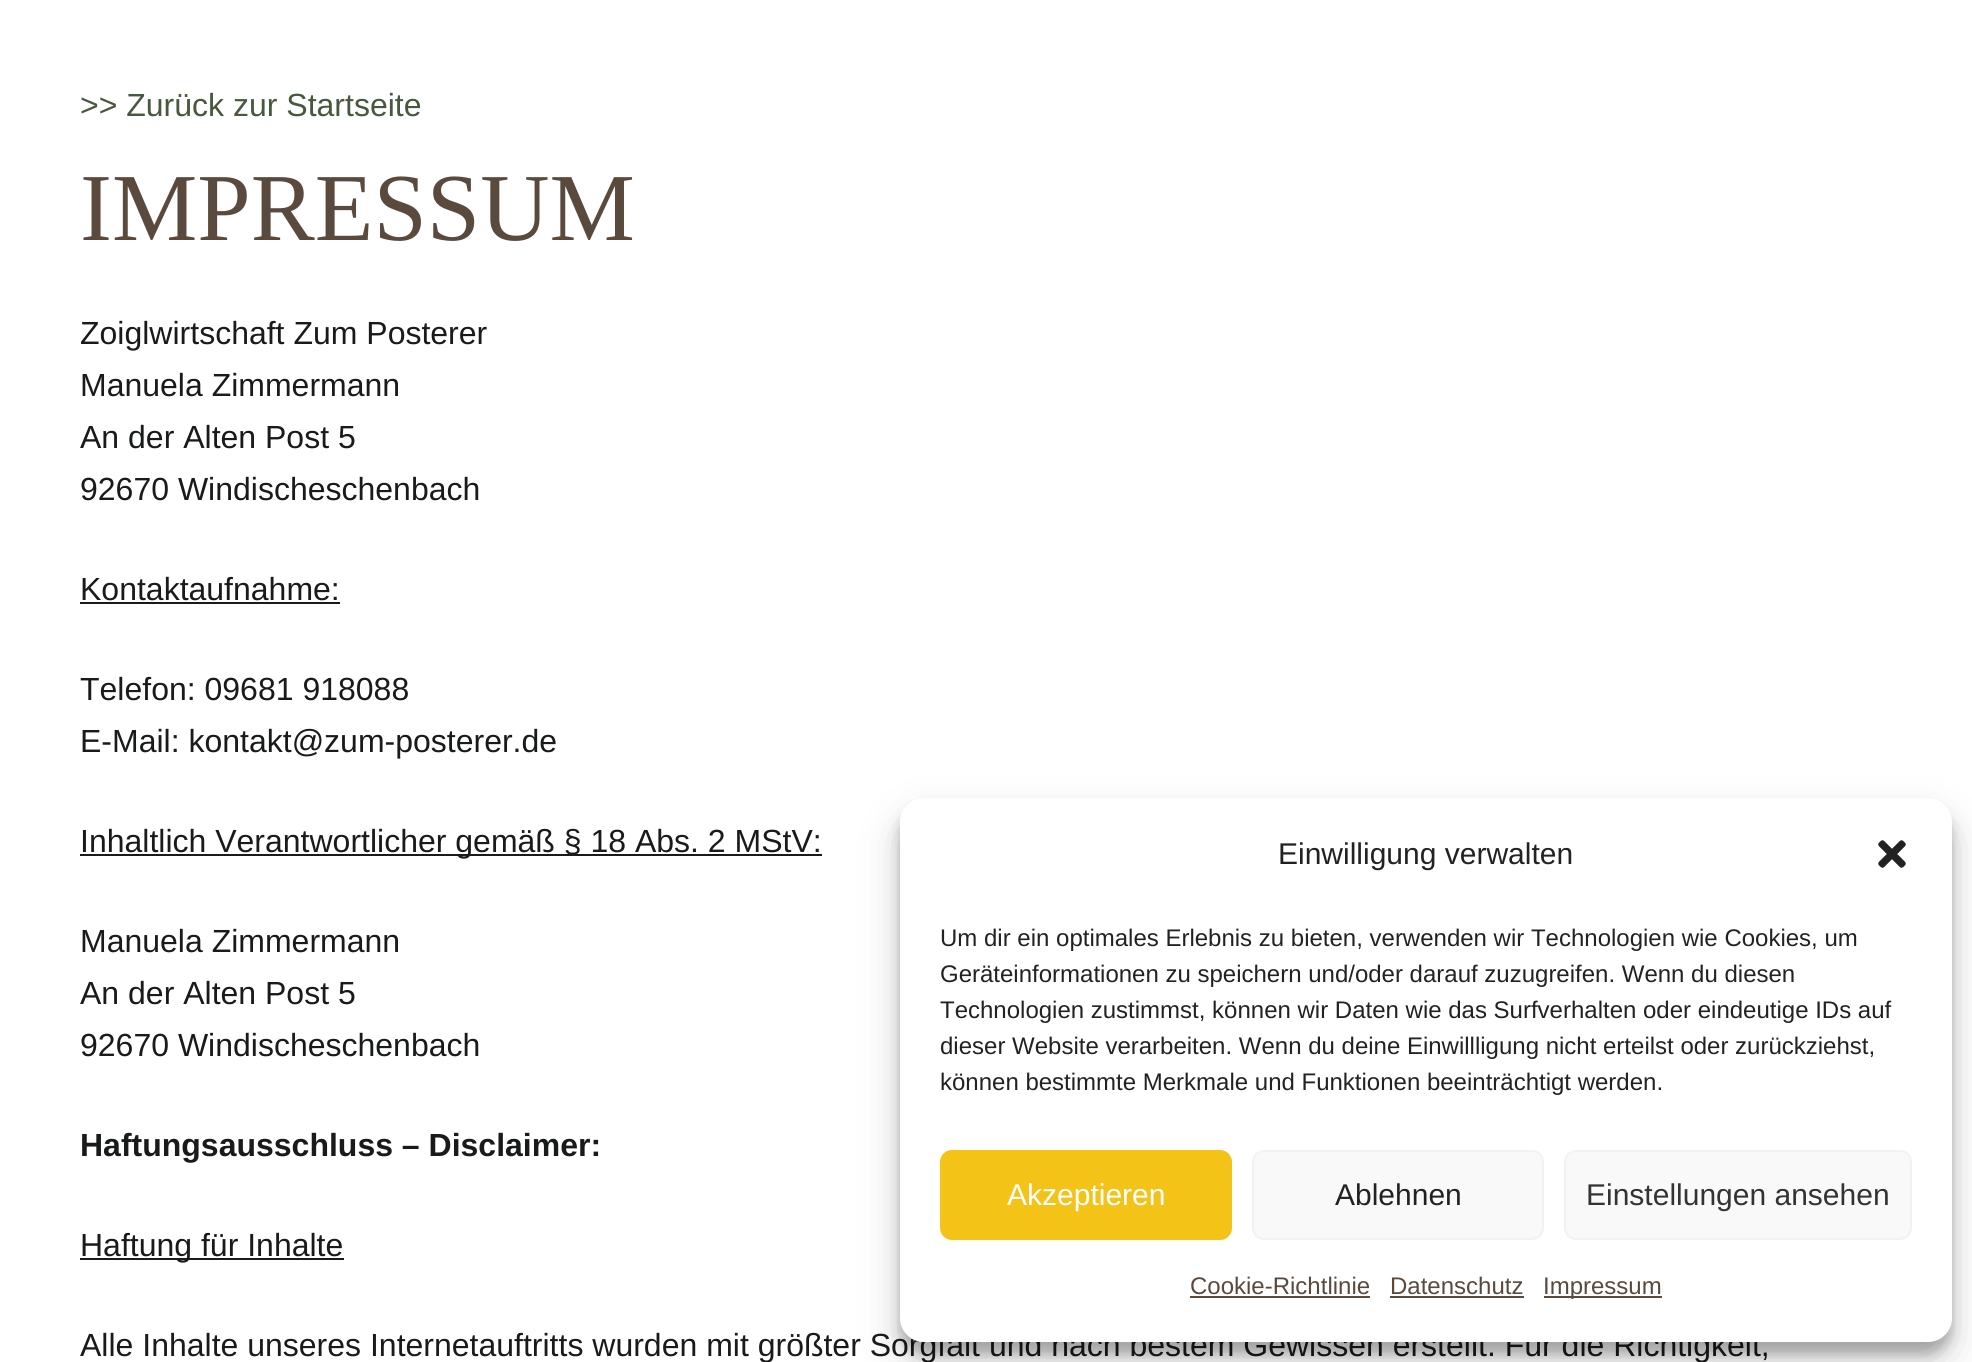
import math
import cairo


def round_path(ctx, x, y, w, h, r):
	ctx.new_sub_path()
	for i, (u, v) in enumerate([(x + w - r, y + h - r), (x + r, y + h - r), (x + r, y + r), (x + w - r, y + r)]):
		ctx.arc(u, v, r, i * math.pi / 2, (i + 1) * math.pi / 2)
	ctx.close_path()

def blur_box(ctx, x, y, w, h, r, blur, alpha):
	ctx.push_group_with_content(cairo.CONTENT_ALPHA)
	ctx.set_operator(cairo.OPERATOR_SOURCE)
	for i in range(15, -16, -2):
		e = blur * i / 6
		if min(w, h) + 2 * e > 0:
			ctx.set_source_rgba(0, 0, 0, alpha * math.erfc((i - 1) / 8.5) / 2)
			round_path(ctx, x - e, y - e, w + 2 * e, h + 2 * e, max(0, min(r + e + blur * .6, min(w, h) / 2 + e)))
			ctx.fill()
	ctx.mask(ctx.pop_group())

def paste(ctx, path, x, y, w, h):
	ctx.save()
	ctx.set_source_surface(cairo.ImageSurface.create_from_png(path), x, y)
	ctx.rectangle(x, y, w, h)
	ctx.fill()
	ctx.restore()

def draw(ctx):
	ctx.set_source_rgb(1, 1, 1)
	ctx.paint()
	ctx.select_font_face('Liberation Sans')
	ctx.set_font_size(32)
	ctx.set_source_rgb(0.278, 0.345, 0.235)
	ctx.move_to(80, 116)
	ctx.show_text('>> Zurück zur Startseite')
	ctx.select_font_face('Liberation Serif')
	ctx.set_font_size(96)
	ctx.set_source_rgb(0.353, 0.29, 0.239)
	ctx.move_to(80, 240)
	ctx.show_text('IMPRESSUM')
	ctx.select_font_face('Liberation Sans')
	ctx.set_font_size(32)
	ctx.set_source_rgb(0.098, 0.102, 0.102)
	for x, y, s in [
		(80, 344, 'Zoiglwirtschaft Zum Posterer'),
		(80, 396, 'Manuela Zimmermann'),
		(80, 448, 'An der Alten Post 5'),
		(80, 500, '92670 Windischeschenbach'),
		(80, 600, 'Kontaktaufnahme:'),
	]:
		ctx.move_to(x, y)
		ctx.show_text(s)
	ctx.rectangle(80, 602, 260, 2)
	ctx.fill()
	ctx.move_to(80, 700)
	ctx.show_text('Telefon: 09681 918088')
	ctx.move_to(80, 752)
	ctx.show_text('E-Mail: kontakt@zum-posterer.de')
	ctx.rectangle(80, 854, 742, 2)
	ctx.fill()
	for x, y, s in [
		(80, 852, 'Inhaltlich Verantwortlicher gemäß § 18 Abs. 2 MStV:'),
		(80, 952, 'Manuela Zimmermann'),
		(80, 1004, 'An der Alten Post 5'),
		(80, 1056, '92670 Windischeschenbach'),
	]:
		ctx.move_to(x, y)
		ctx.show_text(s)
	ctx.select_font_face('Liberation Sans', cairo.FONT_SLANT_NORMAL, cairo.FONT_WEIGHT_BOLD)
	ctx.move_to(80, 1156)
	ctx.show_text('Haftungsausschluss – Disclaimer:')
	ctx.rectangle(80, 1258, 264, 2)
	ctx.fill()
	ctx.select_font_face('Liberation Sans')
	ctx.move_to(80, 1256)
	ctx.show_text('Haftung für Inhalte')
	ctx.move_to(80, 1356)
	ctx.show_text('Alle Inhalte unseres Internetauftritts wurden mit größter Sorgfalt und nach bestem Gewissen erstellt. Für die Richtigkeit,')
	ctx.set_source_rgb(0, 0, 0)
	blur_box(ctx, 900, 810, 1052, 544, 24, 6, 0.23)
	blur_box(ctx, 900, 818, 1052, 544, 24, 20, 0.19)
	ctx.set_source_rgb(1, 1, 1)
	round_path(ctx, 900, 798, 1052, 544, 24)
	ctx.fill()
	ctx.set_font_size(30)
	ctx.set_source_rgb(0.133, 0.133, 0.133)
	ctx.move_to(1278, 864)
	ctx.show_text('Einwilligung verwalten')
	paste(ctx, 'media/1.png', 1878, 840, 28, 28)
	ctx.set_font_size(24)
	for x, y, s in [
		(940, 946, 'Um dir ein optimales Erlebnis zu bieten, verwenden wir Technologien wie Cookies, um'),
		(940, 982, 'Geräteinformationen zu speichern und/oder darauf zuzugreifen. Wenn du diesen'),
		(940, 1018, 'Technologien zustimmst, können wir Daten wie das Surfverhalten oder eindeutige IDs auf'),
		(940, 1054, 'dieser Website verarbeiten. Wenn du deine Einwillligung nicht erteilst oder zurückziehst,'),
		(940, 1090, 'können bestimmte Merkmale und Funktionen beeinträchtigt werden.'),
	]:
		ctx.move_to(x, y)
		ctx.show_text(s)
	ctx.set_source_rgb(0.957, 0.765, 0.094)
	round_path(ctx, 941, 1151, 290, 88, 11)
	ctx.fill_preserve()
	ctx.stroke()
	ctx.set_font_size(30)
	ctx.set_source_rgb(1, 1, 1)
	ctx.move_to(1007, 1205)
	ctx.show_text('Akzeptieren')
	ctx.set_source_rgb(0.976, 0.976, 0.976)
	round_path(ctx, 1253, 1151, 290, 88, 11)
	ctx.fill_preserve()
	ctx.set_source_rgb(0.949, 0.949, 0.949)
	ctx.stroke()
	ctx.set_source_rgb(0.133, 0.133, 0.133)
	ctx.move_to(1335, 1205)
	ctx.show_text('Ablehnen')
	ctx.set_source_rgb(0.976, 0.976, 0.976)
	round_path(ctx, 1565, 1151, 346, 88, 11)
	ctx.fill_preserve()
	ctx.set_source_rgb(0.949, 0.949, 0.949)
	ctx.stroke()
	ctx.set_source_rgb(0.2, 0.2, 0.2)
	ctx.move_to(1586, 1205)
	ctx.show_text('Einstellungen ansehen')
	ctx.set_font_size(24)
	ctx.set_source_rgb(0.353, 0.29, 0.239)
	ctx.move_to(1190, 1294)
	ctx.show_text('Cookie-Richtlinie')
	ctx.rectangle(1190, 1296, 180, 2)
	ctx.fill()
	ctx.move_to(1390, 1294)
	ctx.show_text('Datenschutz')
	ctx.rectangle(1390, 1296, 134, 2)
	ctx.fill()
	ctx.rectangle(1544, 1296, 118, 2)
	ctx.fill()
	ctx.move_to(1543, 1294)
	ctx.show_text('Impressum')


surface = cairo.ImageSurface(cairo.FORMAT_RGB24, 1972, 1362)
ctx = cairo.Context(surface)
options = cairo.FontOptions()
options.set_hint_metrics(cairo.HINT_METRICS_OFF)
options.set_hint_style(cairo.HINT_STYLE_NONE)
ctx.set_font_options(options)
ctx.set_miter_limit(4)
draw(ctx)
surface.write_to_png('image.png')
